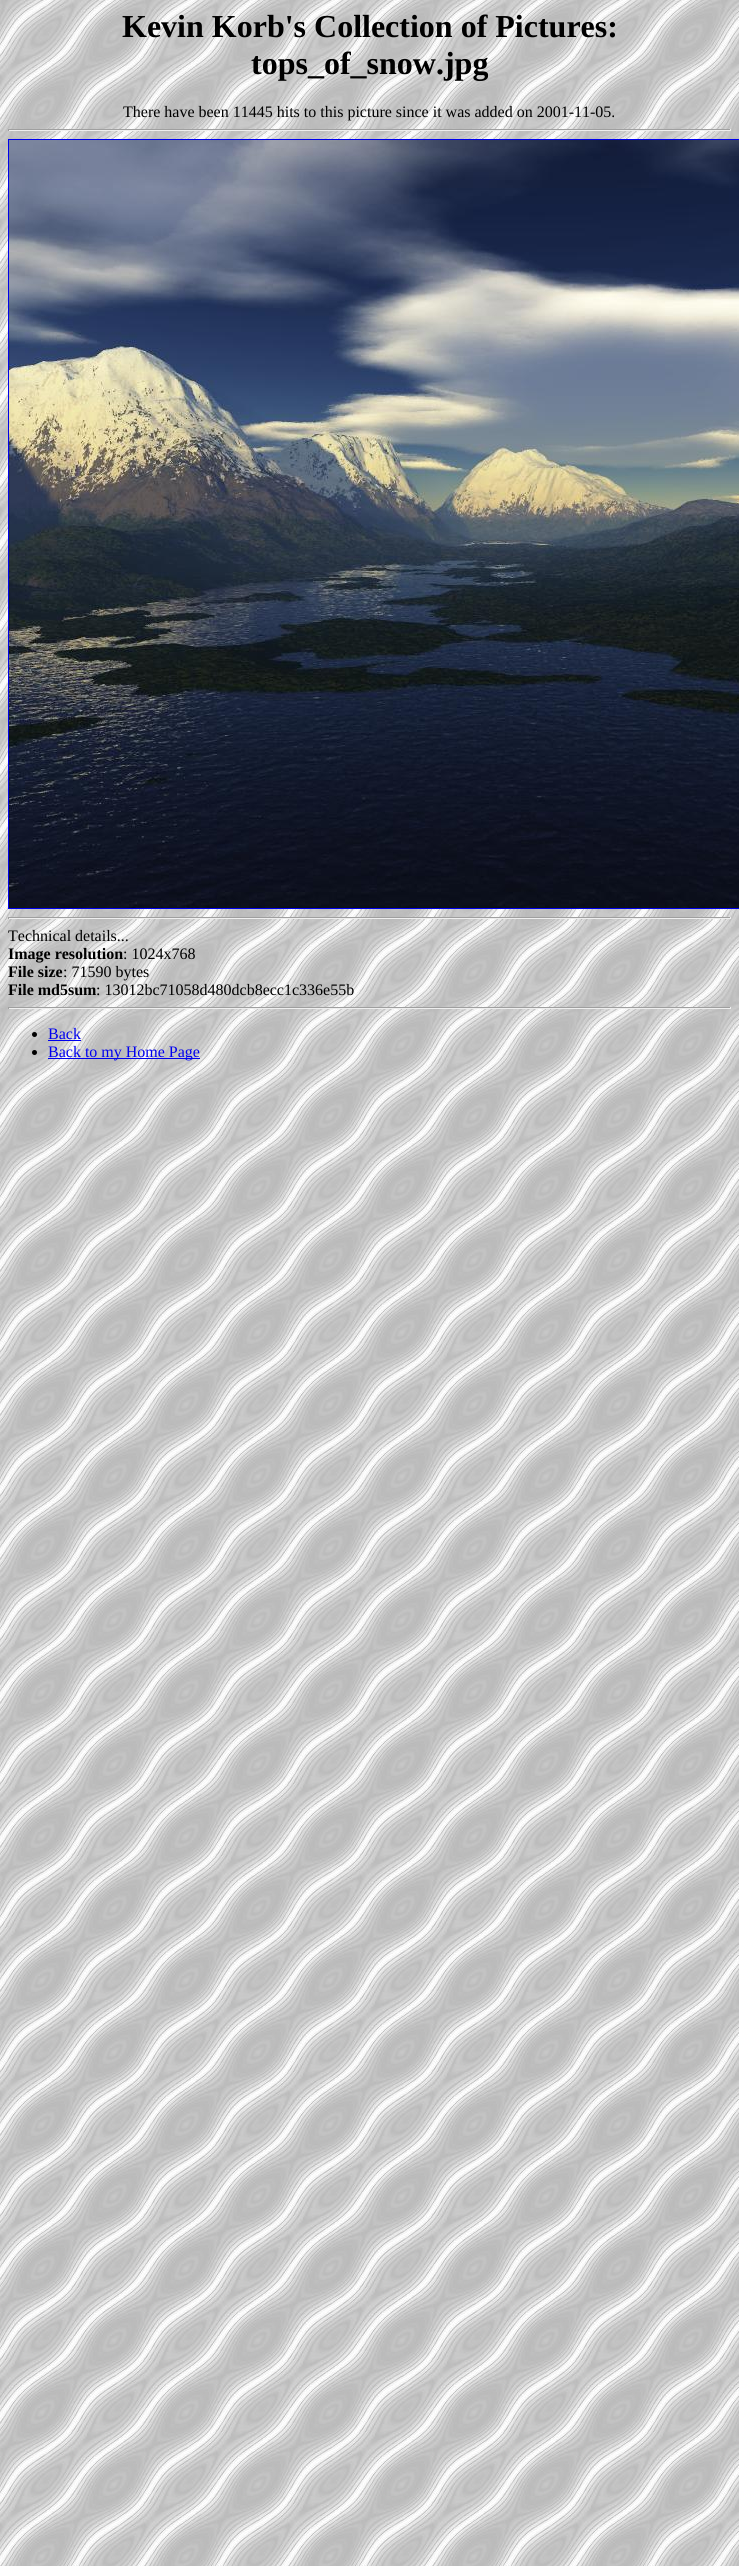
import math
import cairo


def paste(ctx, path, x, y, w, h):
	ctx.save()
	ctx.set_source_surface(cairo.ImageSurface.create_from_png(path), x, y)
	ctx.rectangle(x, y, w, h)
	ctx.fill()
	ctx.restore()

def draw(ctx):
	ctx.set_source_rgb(1, 1, 1)
	ctx.paint()
	paste(ctx, 'media/1.png', 0, 0, 739, 2566)
	ctx.select_font_face('Liberation Serif', cairo.FONT_SLANT_NORMAL, cairo.FONT_WEIGHT_BOLD)
	ctx.set_font_size(32)
	ctx.set_source_rgb(0, 0, 0)
	ctx.move_to(122, 37)
	ctx.show_text('Kevin Korb\'s Collection of Pictures:')
	ctx.move_to(251, 74)
	ctx.show_text('tops_of_snow.jpg')
	ctx.select_font_face('Liberation Serif')
	ctx.set_font_size(16)
	ctx.move_to(123, 117)
	ctx.show_text('There have been 11445 hits to this picture since it was added on 2001-11-05.')
	ctx.set_source_rgb(0.624, 0.624, 0.624)
	ctx.rectangle(8, 129, 723, 1)
	ctx.fill()
	ctx.set_source_rgb(0.933, 0.933, 0.933)
	ctx.rectangle(730, 129, 1, 2)
	ctx.rectangle(8, 130, 723, 1)
	ctx.fill()
	ctx.set_source_rgb(0.624, 0.624, 0.624)
	ctx.rectangle(8, 129, 1, 2)
	ctx.fill()
	ctx.rectangle(8.5, 139.5, 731, 769)
	ctx.set_source_rgb(0, 0, 0.933)
	ctx.set_line_width(1)
	ctx.stroke()
	paste(ctx, 'media/2.png', 9, 140, 730, 768)
	ctx.set_source_rgb(0.624, 0.624, 0.624)
	ctx.rectangle(8, 917, 723, 1)
	ctx.fill()
	ctx.set_source_rgb(0.933, 0.933, 0.933)
	ctx.rectangle(730, 917, 1, 2)
	ctx.rectangle(8, 918, 723, 1)
	ctx.fill()
	ctx.set_source_rgb(0.624, 0.624, 0.624)
	ctx.rectangle(8, 917, 1, 2)
	ctx.fill()
	ctx.set_source_rgb(0, 0, 0)
	ctx.move_to(8, 941)
	ctx.show_text('Technical details...')
	ctx.select_font_face('Liberation Serif', cairo.FONT_SLANT_NORMAL, cairo.FONT_WEIGHT_BOLD)
	ctx.move_to(8, 959)
	ctx.show_text('Image resolution')
	ctx.select_font_face('Liberation Serif')
	ctx.move_to(123, 959)
	ctx.show_text(': 1024x768')
	ctx.select_font_face('Liberation Serif', cairo.FONT_SLANT_NORMAL, cairo.FONT_WEIGHT_BOLD)
	ctx.move_to(8, 977)
	ctx.show_text('File size')
	ctx.select_font_face('Liberation Serif')
	ctx.move_to(63, 977)
	ctx.show_text(': 71590 bytes')
	ctx.select_font_face('Liberation Serif', cairo.FONT_SLANT_NORMAL, cairo.FONT_WEIGHT_BOLD)
	ctx.move_to(8, 995)
	ctx.show_text('File md5sum')
	ctx.select_font_face('Liberation Serif')
	ctx.move_to(96, 995)
	ctx.show_text(': 13012bc71058d480dcb8ecc1c336e55b')
	ctx.set_source_rgb(0.624, 0.624, 0.624)
	ctx.rectangle(8, 1007, 723, 1)
	ctx.fill()
	ctx.set_source_rgb(0.933, 0.933, 0.933)
	ctx.rectangle(730, 1007, 1, 2)
	ctx.rectangle(8, 1008, 723, 1)
	ctx.fill()
	ctx.set_source_rgb(0.624, 0.624, 0.624)
	ctx.rectangle(8, 1007, 1, 2)
	ctx.fill()
	ctx.set_source_rgb(0, 0, 0)
	ctx.arc(34.5, 1034.5, 2.5, 0, 2 * math.pi)
	ctx.fill()
	ctx.set_source_rgb(0, 0, 0.933)
	ctx.move_to(48, 1039)
	ctx.show_text('Back')
	ctx.rectangle(48, 1040, 33, 1)
	ctx.fill()
	ctx.set_source_rgb(0, 0, 0)
	ctx.arc(34.5, 1052.5, 2.5, 0, 2 * math.pi)
	ctx.fill()
	ctx.set_source_rgb(0, 0, 0.933)
	ctx.rectangle(48, 1058, 152, 1)
	ctx.fill()
	ctx.move_to(48, 1057)
	ctx.show_text('Back to my Home Page')


surface = cairo.ImageSurface(cairo.FORMAT_RGB24, 739, 2566)
ctx = cairo.Context(surface)
options = cairo.FontOptions()
options.set_hint_metrics(cairo.HINT_METRICS_OFF)
options.set_hint_style(cairo.HINT_STYLE_NONE)
ctx.set_font_options(options)
ctx.set_miter_limit(4)
draw(ctx)
surface.write_to_png('image.png')
